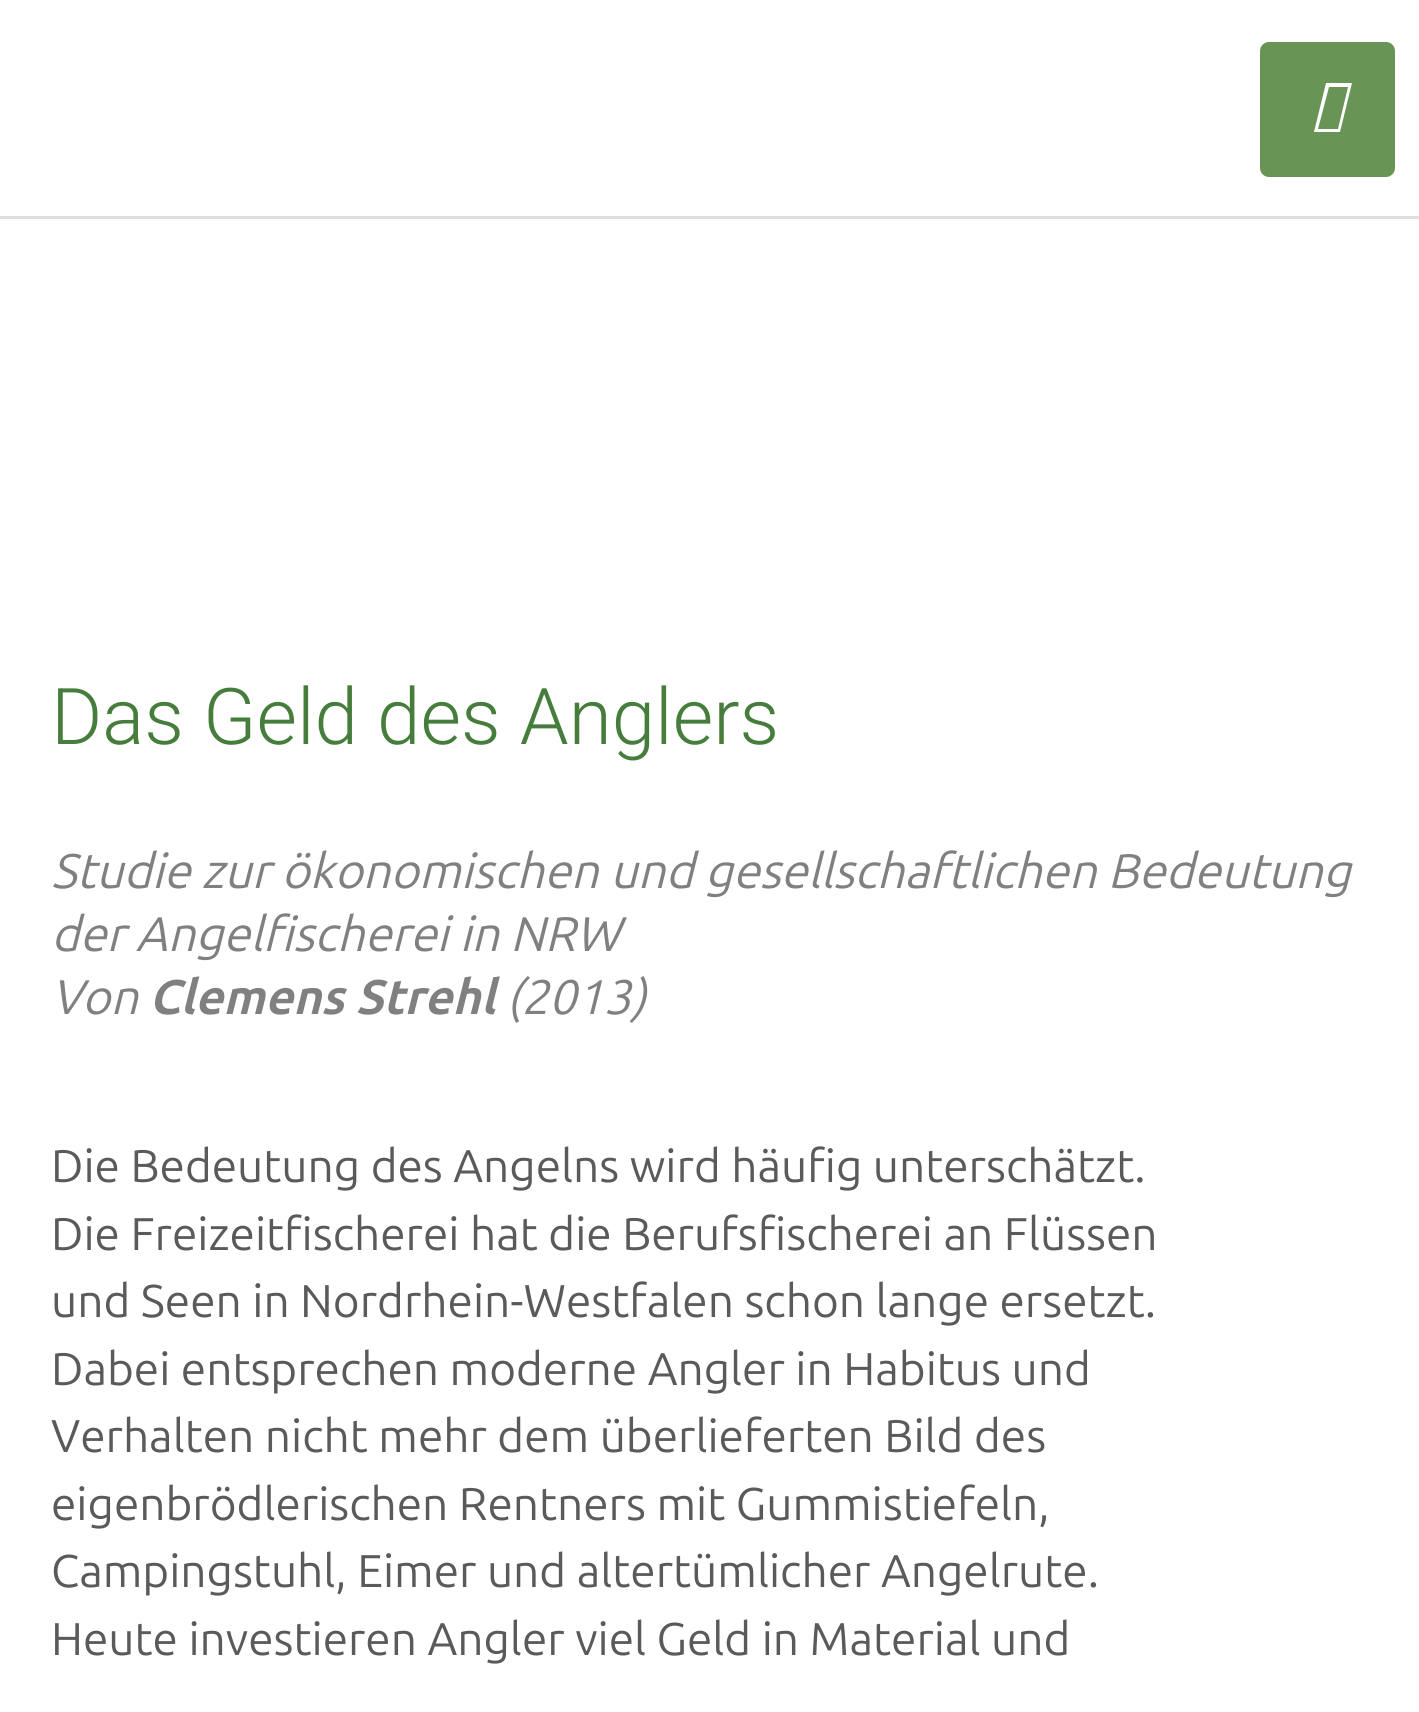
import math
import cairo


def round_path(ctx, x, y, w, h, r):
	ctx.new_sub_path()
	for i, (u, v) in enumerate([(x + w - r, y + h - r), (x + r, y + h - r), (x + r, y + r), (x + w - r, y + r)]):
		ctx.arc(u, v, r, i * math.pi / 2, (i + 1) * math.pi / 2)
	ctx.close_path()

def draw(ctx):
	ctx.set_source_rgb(1, 1, 1)
	ctx.paint()
	ctx.set_source_rgb(0.875, 0.875, 0.875)
	ctx.rectangle(0, 216, 1419, 3)
	ctx.fill()
	ctx.set_source_rgb(0.408, 0.58, 0.337)
	round_path(ctx, 1260, 42, 135, 135, 9)
	ctx.fill()
	ctx.set_source_rgb(1, 1, 1)
	ctx.new_path()
	ctx.move_to(1314, 132)
	ctx.line_to(1326, 83)
	ctx.line_to(1352, 83)
	ctx.line_to(1340, 132)
	ctx.close_path()
	ctx.move_to(1318, 129)
	ctx.line_to(1338, 129)
	ctx.line_to(1348, 87)
	ctx.line_to(1329, 87)
	ctx.close_path()
	ctx.fill()
	ctx.select_font_face('Roboto Light')
	ctx.set_font_size(78.25)
	ctx.set_source_rgb(0.275, 0.49, 0.235)
	ctx.move_to(51, 744)
	ctx.show_text('Das Geld des Anglers')
	ctx.select_font_face('Ubuntu', cairo.FONT_SLANT_ITALIC)
	ctx.set_font_size(48.6)
	ctx.set_source_rgb(0.502, 0.502, 0.502)
	for x, y, s in [
		(51, 888, 'Studie zur ökonomischen und gesellschaftlichen Bedeutung'),
		(51, 951, 'der Angelfischerei in NRW'),
		(51, 1014, 'Von'),
	]:
		ctx.move_to(x, y)
		ctx.show_text(s)
	ctx.select_font_face('Ubuntu', cairo.FONT_SLANT_ITALIC, cairo.FONT_WEIGHT_BOLD)
	ctx.move_to(149, 1014)
	ctx.show_text('Clemens Strehl')
	ctx.select_font_face('Ubuntu', cairo.FONT_SLANT_ITALIC)
	ctx.move_to(506, 1014)
	ctx.show_text('(2013)')
	ctx.select_font_face('Ubuntu')
	ctx.set_font_size(45.9)
	ctx.set_source_rgb(0.353, 0.353, 0.353)
	for x, y, s in [
		(51, 1182, 'Die Bedeutung des Angelns wird häufig unterschätzt.'),
		(51, 1250, 'Die Freizeitfischerei hat die Berufsfischerei an Flüssen'),
		(51, 1317, 'und Seen in Nordrhein-Westfalen schon lange ersetzt.'),
		(51, 1385, 'Dabei entsprechen moderne Angler in Habitus und'),
		(51, 1452, 'Verhalten nicht mehr dem überlieferten Bild des'),
		(51, 1520, 'eigenbrödlerischen Rentners mit Gummistiefeln,'),
		(51, 1587, 'Campingstuhl, Eimer und altertümlicher Angelrute.'),
		(51, 1655, 'Heute investieren Angler viel Geld in Material und'),
	]:
		ctx.move_to(x, y)
		ctx.show_text(s)


surface = cairo.ImageSurface(cairo.FORMAT_RGB24, 1419, 1712)
ctx = cairo.Context(surface)
options = cairo.FontOptions()
options.set_hint_metrics(cairo.HINT_METRICS_OFF)
options.set_hint_style(cairo.HINT_STYLE_NONE)
ctx.set_font_options(options)
ctx.set_miter_limit(4)
draw(ctx)
surface.write_to_png('image.png')
